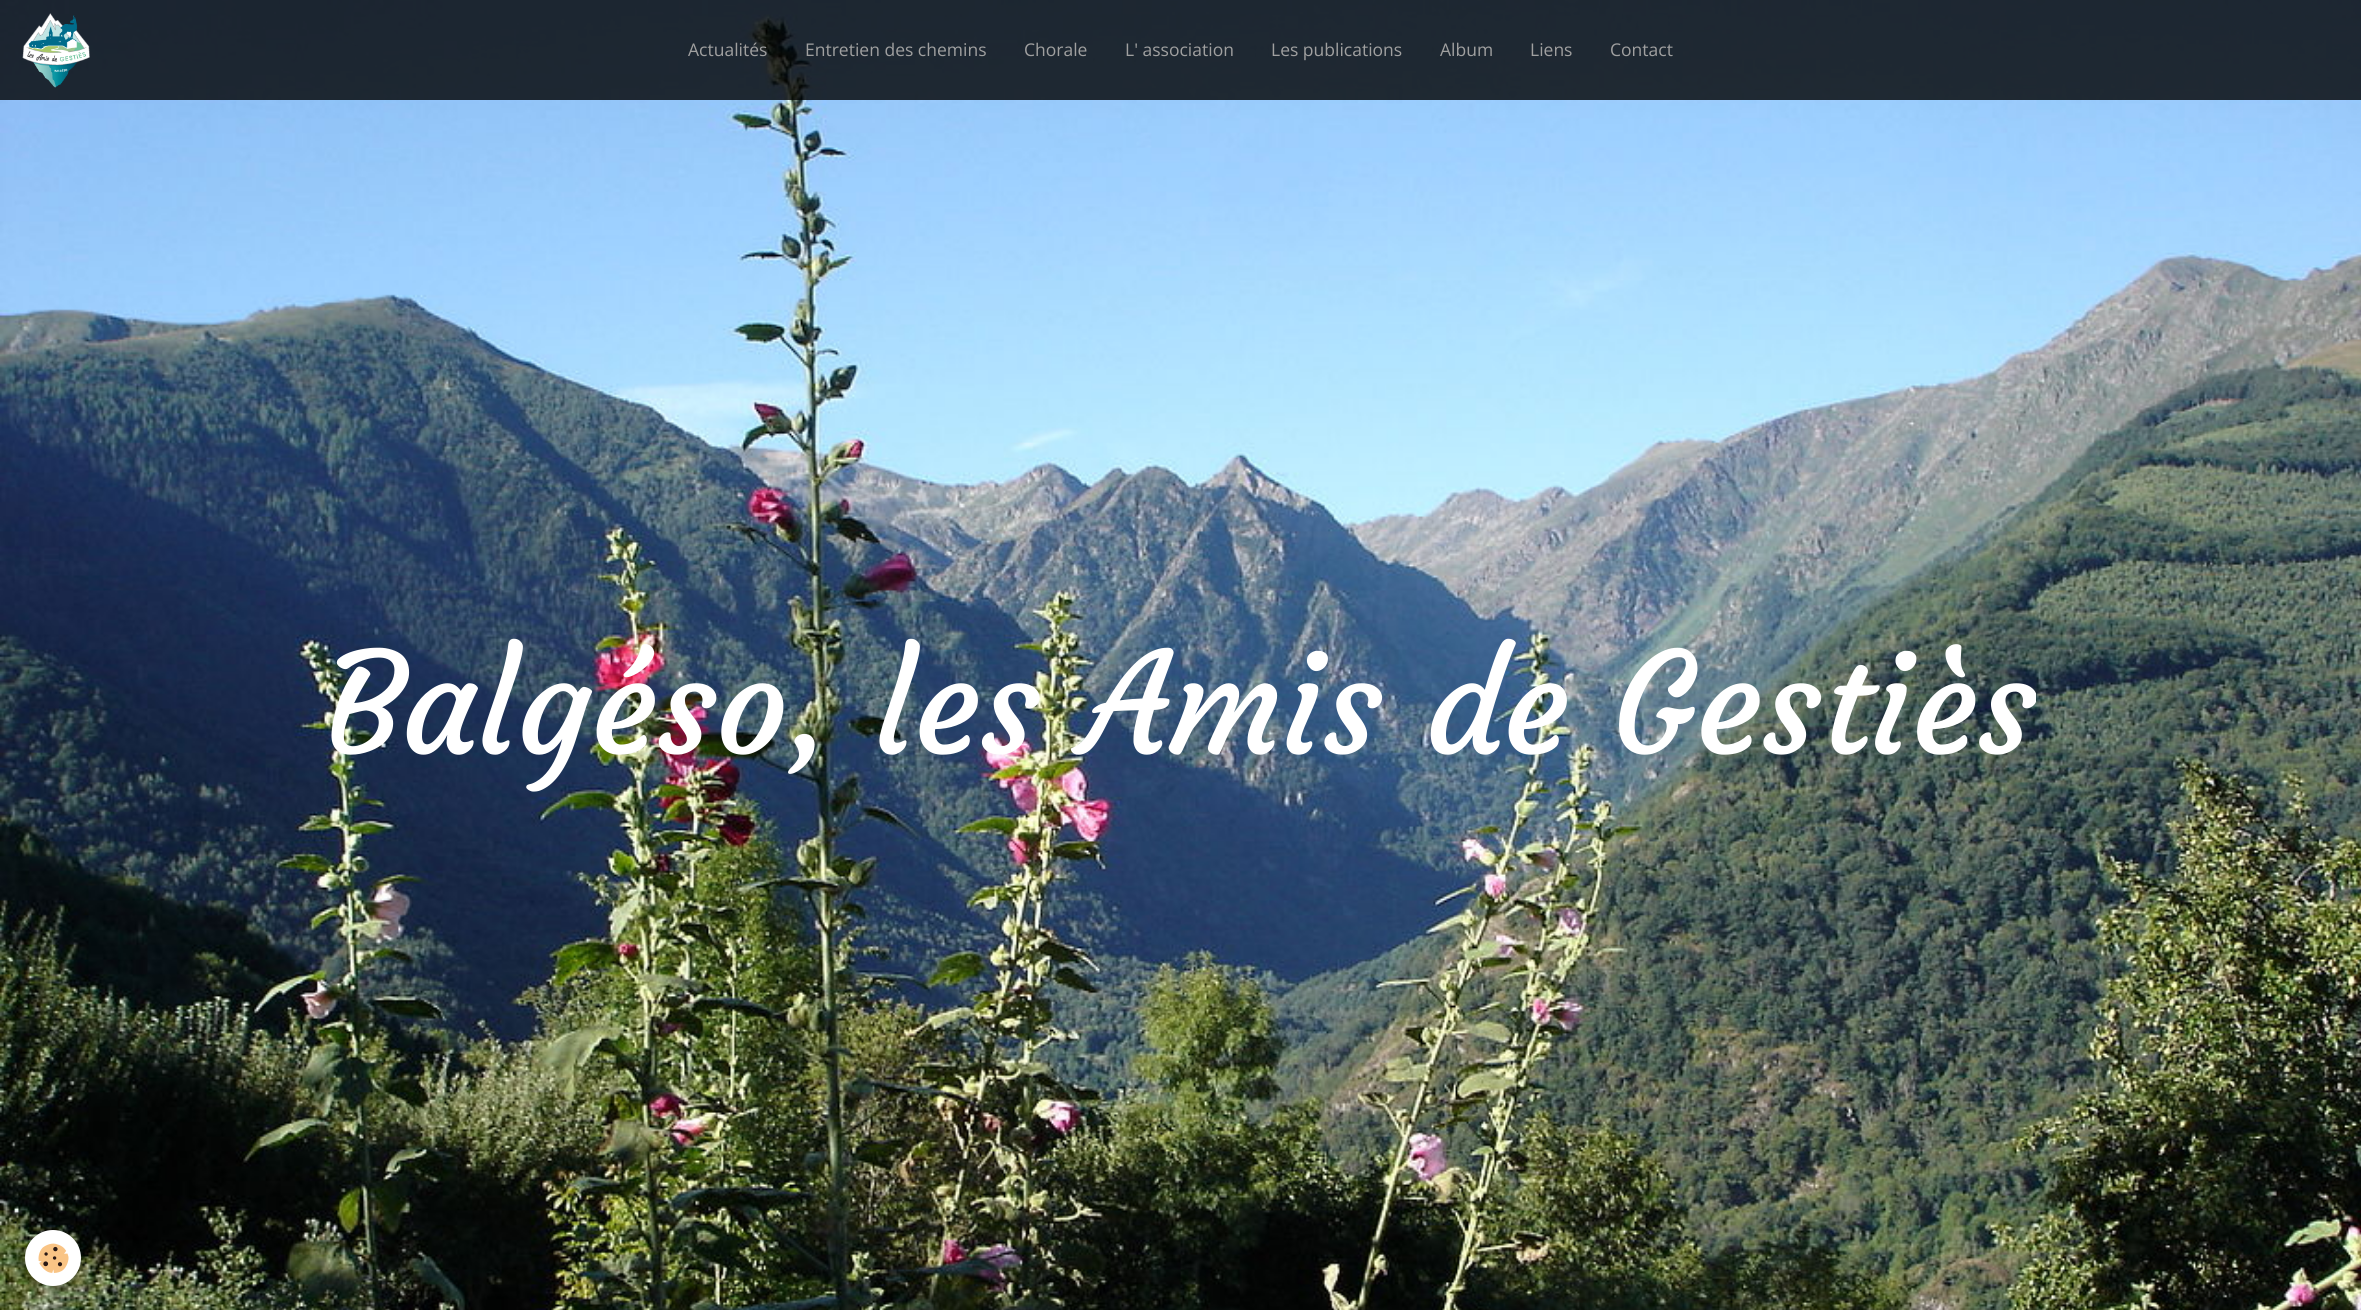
import math
import cairo


def round_path(ctx, x, y, w, h, r):
	ctx.new_sub_path()
	for i, (u, v) in enumerate([(x + w - r, y + h - r), (x + r, y + h - r), (x + r, y + r), (x + w - r, y + r)]):
		ctx.arc(u, v, r, i * math.pi / 2, (i + 1) * math.pi / 2)
	ctx.close_path()

def blur_box(ctx, x, y, w, h, r, blur, alpha):
	ctx.push_group_with_content(cairo.CONTENT_ALPHA)
	ctx.set_operator(cairo.OPERATOR_SOURCE)
	for i in range(15, -16, -2):
		e = blur * i / 6
		if min(w, h) + 2 * e > 0:
			ctx.set_source_rgba(0, 0, 0, alpha * math.erfc((i - 1) / 8.5) / 2)
			round_path(ctx, x - e, y - e, w + 2 * e, h + 2 * e, max(0, min(r + e + blur * .6, min(w, h) / 2 + e)))
			ctx.fill()
	ctx.mask(ctx.pop_group())

def paste(ctx, path, x, y, w, h):
	ctx.save()
	ctx.set_source_surface(cairo.ImageSurface.create_from_png(path), x, y)
	ctx.rectangle(x, y, w, h)
	ctx.fill()
	ctx.restore()

def draw(ctx):
	ctx.set_source_rgb(1, 1, 1)
	ctx.paint()
	paste(ctx, 'media/2.png', 0, 0, 2361, 1310)
	ctx.set_source_rgba(0, 0, 0, 0.8)
	ctx.rectangle(0, 0, 2361, 100)
	ctx.fill()
	paste(ctx, 'media/1.png', 22, 13, 68, 75)
	ctx.select_font_face('Open Sans')
	ctx.set_font_size(17.5)
	ctx.set_source_rgb(0.627, 0.627, 0.627)
	for x, y, s in [
		(688, 56, 'Actualités'),
		(805, 56, 'Entretien des chemins'),
		(1024, 56, 'Chorale'),
		(1125, 56, 'L\' association'),
		(1271, 56, 'Les publications'),
		(1440, 56, 'Album'),
		(1530, 56, 'Liens'),
		(1610, 56, 'Contact'),
	]:
		ctx.move_to(x, y)
		ctx.show_text(s)
	ctx.save()
	ctx.rectangle(325, 605, 1711, 200)
	ctx.clip()
	ctx.select_font_face('Courgette')
	ctx.set_font_size(140)
	ctx.set_source_rgb(1, 1, 1)
	ctx.move_to(325, 754)
	ctx.show_text('Balgéso, les Amis de Gestiès')
	ctx.restore()
	ctx.set_source_rgb(0, 0, 0)
	blur_box(ctx, 25, 1234, 56, 56, 28, 6, 0.24)
	ctx.set_source_rgb(1, 1, 1)
	ctx.arc(53, 1258, 28, 0, 2 * math.pi)
	ctx.fill()
	paste(ctx, 'media/3.png', 38, 1243, 31, 30)


surface = cairo.ImageSurface(cairo.FORMAT_RGB24, 2361, 1310)
ctx = cairo.Context(surface)
options = cairo.FontOptions()
options.set_hint_metrics(cairo.HINT_METRICS_OFF)
options.set_hint_style(cairo.HINT_STYLE_NONE)
ctx.set_font_options(options)
ctx.set_miter_limit(4)
draw(ctx)
surface.write_to_png('image.png')
